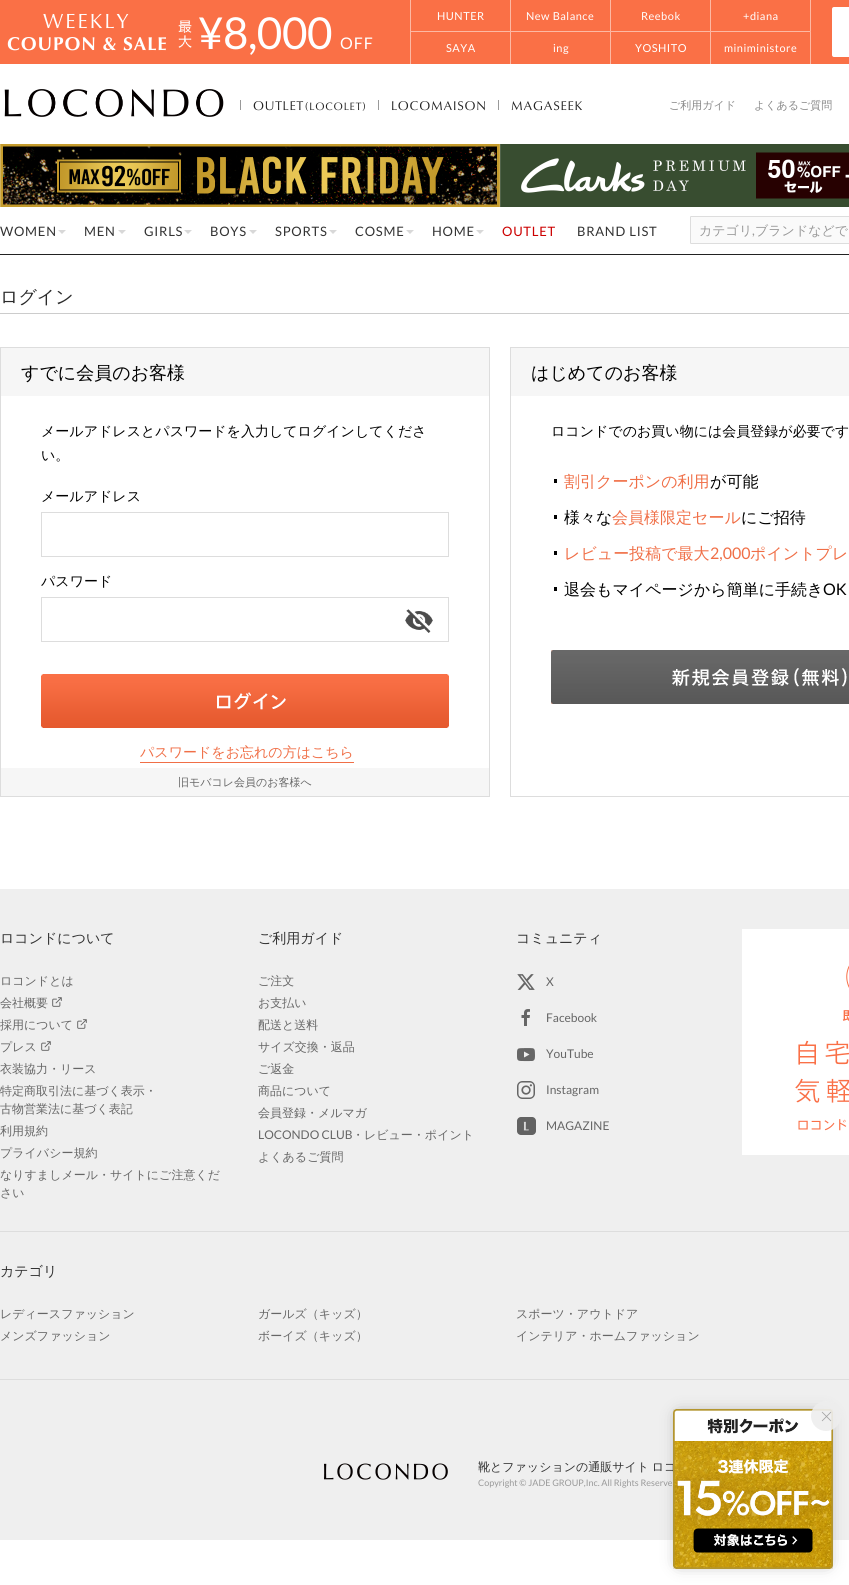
import math
import cairo


def write_spaced(ctx, x, y, s, letter, word):
	ctx.move_to(x, y)
	for ch in s:
		ctx.show_text(ch)
		ctx.rel_move_to(letter + word * (ch == ' '), 0)

def round_path(ctx, x, y, w, h, r):
	ctx.new_sub_path()
	for i, (u, v) in enumerate([(x + w - r, y + h - r), (x + r, y + h - r), (x + r, y + r), (x + w - r, y + r)]):
		ctx.arc(u, v, r, i * math.pi / 2, (i + 1) * math.pi / 2)
	ctx.close_path()

def blur_box(ctx, x, y, w, h, r, blur, alpha):
	ctx.push_group_with_content(cairo.CONTENT_ALPHA)
	ctx.set_operator(cairo.OPERATOR_SOURCE)
	for i in range(15, -16, -2):
		e = blur * i / 6
		if min(w, h) + 2 * e > 0:
			ctx.set_source_rgba(0, 0, 0, alpha * math.erfc((i - 1) / 8.5) / 2)
			round_path(ctx, x - e, y - e, w + 2 * e, h + 2 * e, max(0, min(r + e + blur * .6, min(w, h) / 2 + e)))
			ctx.fill()
	ctx.mask(ctx.pop_group())

def paste(ctx, path, x, y, w, h):
	ctx.save()
	ctx.set_source_surface(cairo.ImageSurface.create_from_png(path), x, y)
	ctx.rectangle(x, y, w, h)
	ctx.fill()
	ctx.restore()

def draw(ctx):
	ctx.set_source_rgb(1, 1, 1)
	ctx.paint()
	ctx.set_source_rgb(0.98, 0.439, 0.275)
	ctx.rectangle(0, 0, 849, 64)
	ctx.fill()
	ctx.select_font_face('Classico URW')
	ctx.set_font_size(21)
	ctx.set_source_rgb(1, 1, 1)
	write_spaced(ctx, 43, 28, 'WEEKLY', 2, 0)
	ctx.select_font_face('Classico URW', cairo.FONT_SLANT_NORMAL, cairo.FONT_WEIGHT_BOLD)
	ctx.set_font_size(19)
	write_spaced(ctx, 7, 50, 'COUPON & SALE', 1, 0)
	paste(ctx, 'media/1.png', 178, 20, 14, 28)
	ctx.select_font_face('Lato')
	ctx.set_font_size(44)
	write_spaced(ctx, 198, 49, '¥8,000', -0.5, 0)
	ctx.set_font_size(16)
	write_spaced(ctx, 340, 49, 'OFF', 1, 0)
	ctx.set_source_rgb(0.992, 0.722, 0.639)
	ctx.rectangle(410, 0, 1, 64)
	ctx.fill()
	ctx.new_path()
	ctx.move_to(511, 0)
	ctx.line_to(511, 32)
	ctx.line_to(510, 31)
	ctx.line_to(510, 0)
	ctx.close_path()
	ctx.fill()
	ctx.set_source_rgba(1, 1, 1, 0.5)
	ctx.new_path()
	ctx.move_to(511, 32)
	ctx.line_to(411, 32)
	ctx.line_to(411, 31)
	ctx.line_to(510, 31)
	ctx.close_path()
	ctx.fill()
	ctx.set_font_size(11)
	ctx.set_source_rgb(1, 1, 1)
	write_spaced(ctx, 437, 20, 'HUNTER', 0.5, 0)
	ctx.set_source_rgb(0.992, 0.722, 0.639)
	ctx.new_path()
	ctx.move_to(611, 0)
	ctx.line_to(611, 32)
	ctx.line_to(610, 31)
	ctx.line_to(610, 0)
	ctx.close_path()
	ctx.fill()
	ctx.set_source_rgba(1, 1, 1, 0.5)
	ctx.new_path()
	ctx.move_to(611, 32)
	ctx.line_to(511, 32)
	ctx.line_to(511, 31)
	ctx.line_to(610, 31)
	ctx.close_path()
	ctx.fill()
	ctx.set_source_rgb(1, 1, 1)
	write_spaced(ctx, 526, 20, 'New Balance', 0.5, 0)
	ctx.set_source_rgb(0.992, 0.722, 0.639)
	ctx.new_path()
	ctx.move_to(711, 0)
	ctx.line_to(711, 32)
	ctx.line_to(710, 31)
	ctx.line_to(710, 0)
	ctx.close_path()
	ctx.fill()
	ctx.set_source_rgba(1, 1, 1, 0.5)
	ctx.new_path()
	ctx.move_to(711, 32)
	ctx.line_to(611, 32)
	ctx.line_to(611, 31)
	ctx.line_to(710, 31)
	ctx.close_path()
	ctx.fill()
	ctx.set_source_rgb(1, 1, 1)
	write_spaced(ctx, 641, 20, 'Reebok', 0.5, 0)
	ctx.set_source_rgb(0.992, 0.722, 0.639)
	ctx.new_path()
	ctx.move_to(811, 0)
	ctx.line_to(811, 32)
	ctx.line_to(810, 31)
	ctx.line_to(810, 0)
	ctx.close_path()
	ctx.fill()
	ctx.set_source_rgba(1, 1, 1, 0.5)
	ctx.new_path()
	ctx.move_to(811, 32)
	ctx.line_to(711, 32)
	ctx.line_to(711, 31)
	ctx.line_to(810, 31)
	ctx.close_path()
	ctx.fill()
	ctx.set_source_rgb(1, 1, 1)
	write_spaced(ctx, 743, 20, '+diana', 0.5, 0)
	ctx.set_source_rgb(0.992, 0.722, 0.639)
	ctx.rectangle(510, 32, 1, 32)
	ctx.fill()
	ctx.set_source_rgb(1, 1, 1)
	write_spaced(ctx, 446, 52, 'SAYA', 0.5, 0)
	ctx.set_source_rgb(0.992, 0.722, 0.639)
	ctx.rectangle(610, 32, 1, 32)
	ctx.fill()
	ctx.set_source_rgb(1, 1, 1)
	write_spaced(ctx, 553, 52, 'ing', 0.5, 0)
	ctx.set_source_rgb(0.992, 0.722, 0.639)
	ctx.rectangle(710, 32, 1, 32)
	ctx.fill()
	ctx.set_source_rgb(1, 1, 1)
	write_spaced(ctx, 635, 52, 'YOSHITO', 0.5, 0)
	ctx.set_source_rgb(0.992, 0.722, 0.639)
	ctx.rectangle(810, 32, 1, 32)
	ctx.fill()
	ctx.set_source_rgb(1, 1, 1)
	write_spaced(ctx, 724, 52, 'miniministore', 0.5, 0)
	round_path(ctx, 832, 7, 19, 50, 2)
	ctx.fill()
	ctx.set_source_rgb(0.937, 0.937, 0.937)
	ctx.rectangle(0, 889, 849, 651)
	ctx.fill()
	ctx.set_source_rgb(0, 0, 0)
	blur_box(ctx, 679, 1415, 148, 148, 0, 8, 0.4)
	ctx.select_font_face('WenQuanYi Zen Hei Medium')
	ctx.set_font_size(12)
	ctx.set_source_rgb(0.2, 0.2, 0.2)
	write_spaced(ctx, 478, 1471, '靴とファッションの通販サイト ロコ', 0, -1)
	paste(ctx, 'media/3.png', 673, 1409, 160, 160)
	ctx.set_source_rgba(0.933, 0.933, 0.933, 0.9)
	ctx.arc(826, 1416, 15, 0, 2 * math.pi)
	ctx.fill()
	paste(ctx, 'media/2.png', 821, 1411, 11, 11)
	paste(ctx, 'media/4.png', 4, 89, 220, 28)
	ctx.set_source_rgb(0.6, 0.6, 0.6)
	ctx.rectangle(240, 100, 1, 10)
	ctx.fill()
	ctx.select_font_face('Classico URW')
	ctx.set_font_size(13)
	ctx.set_source_rgb(0.133, 0.133, 0.133)
	write_spaced(ctx, 253, 110, 'OUTLET', 0.75, 0)
	ctx.set_font_size(11)
	write_spaced(ctx, 305, 110, '(LOCOLET)', 0.75, 0)
	ctx.set_source_rgb(0.6, 0.6, 0.6)
	ctx.rectangle(378, 100, 1, 10)
	ctx.fill()
	ctx.set_font_size(13)
	ctx.set_source_rgb(0.133, 0.133, 0.133)
	write_spaced(ctx, 391, 110, 'LOCOMAISON', 0.75, 0)
	ctx.set_source_rgb(0.6, 0.6, 0.6)
	ctx.rectangle(498, 100, 1, 10)
	ctx.fill()
	ctx.set_source_rgb(0.133, 0.133, 0.133)
	write_spaced(ctx, 511, 110, 'MAGASEEK', 0.75, 0)
	ctx.select_font_face('WenQuanYi Zen Hei Medium')
	ctx.set_font_size(11)
	ctx.set_source_rgb(0.533, 0.533, 0.533)
	ctx.move_to(669, 109)
	ctx.show_text('ご利用ガイド')
	ctx.move_to(754, 109)
	ctx.show_text('よくあるご質問')
	paste(ctx, 'media/5.png', 0, 144, 849, 63)
	ctx.set_source_rgb(0.133, 0.133, 0.133)
	ctx.rectangle(0, 254, 849, 1)
	ctx.fill()
	ctx.select_font_face('Lato')
	ctx.set_font_size(13)
	ctx.set_source_rgb(0.2, 0.2, 0.2)
	write_spaced(ctx, 0, 236, 'WOMEN', 0.75, 0)
	ctx.set_source_rgb(0.847, 0.847, 0.847)
	ctx.new_path()
	ctx.move_to(58, 230)
	ctx.line_to(66, 230)
	ctx.line_to(62, 234)
	ctx.close_path()
	ctx.fill()
	ctx.set_source_rgb(0.2, 0.2, 0.2)
	write_spaced(ctx, 84, 236, 'MEN', 0.75, 0)
	ctx.set_source_rgb(0.847, 0.847, 0.847)
	ctx.new_path()
	ctx.move_to(118, 230)
	ctx.line_to(126, 230)
	ctx.line_to(122, 234)
	ctx.close_path()
	ctx.fill()
	ctx.set_source_rgb(0.2, 0.2, 0.2)
	write_spaced(ctx, 144, 236, 'GIRLS', 0.75, 0)
	ctx.set_source_rgb(0.847, 0.847, 0.847)
	ctx.new_path()
	ctx.move_to(184, 230)
	ctx.line_to(192, 230)
	ctx.line_to(188, 234)
	ctx.close_path()
	ctx.fill()
	ctx.set_source_rgb(0.2, 0.2, 0.2)
	write_spaced(ctx, 210, 236, 'BOYS', 0.75, 0)
	ctx.set_source_rgb(0.847, 0.847, 0.847)
	ctx.new_path()
	ctx.move_to(249, 230)
	ctx.line_to(257, 230)
	ctx.line_to(253, 234)
	ctx.close_path()
	ctx.fill()
	ctx.set_source_rgb(0.2, 0.2, 0.2)
	write_spaced(ctx, 275, 236, 'SPORTS', 0.75, 0)
	ctx.set_source_rgb(0.847, 0.847, 0.847)
	ctx.new_path()
	ctx.move_to(329, 230)
	ctx.line_to(337, 230)
	ctx.line_to(333, 234)
	ctx.close_path()
	ctx.fill()
	ctx.set_source_rgb(0.2, 0.2, 0.2)
	write_spaced(ctx, 355, 236, 'COSME', 0.75, 0)
	ctx.set_source_rgb(0.847, 0.847, 0.847)
	ctx.new_path()
	ctx.move_to(406, 230)
	ctx.line_to(414, 230)
	ctx.line_to(410, 234)
	ctx.close_path()
	ctx.fill()
	ctx.set_source_rgb(0.2, 0.2, 0.2)
	write_spaced(ctx, 432, 236, 'HOME', 0.75, 0)
	ctx.set_source_rgb(0.847, 0.847, 0.847)
	ctx.new_path()
	ctx.move_to(476, 230)
	ctx.line_to(484, 230)
	ctx.line_to(480, 234)
	ctx.close_path()
	ctx.fill()
	ctx.set_source_rgb(0.8, 0, 0)
	write_spaced(ctx, 502, 236, 'OUTLET', 0.75, 0)
	ctx.set_source_rgb(0.2, 0.2, 0.2)
	write_spaced(ctx, 577, 236, 'BRAND LIST', 0.75, 0)
	ctx.set_source_rgb(0.98, 0.98, 0.98)
	round_path(ctx, 690.5, 216.5, 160, 27, 0.5)
	ctx.fill_preserve()
	ctx.set_source_rgb(0.867, 0.867, 0.867)
	ctx.set_line_width(1)
	ctx.stroke()
	ctx.select_font_face('WenQuanYi Zen Hei Medium')
	ctx.set_source_rgb(0.6, 0.6, 0.6)
	ctx.move_to(699, 235)
	ctx.show_text('カテゴリ')
	ctx.select_font_face('Lato')
	ctx.move_to(752, 235)
	ctx.show_text(',')
	ctx.select_font_face('WenQuanYi Zen Hei Medium')
	ctx.move_to(755, 235)
	ctx.show_text('ブランドなどで')
	ctx.set_source_rgb(0.8, 0.8, 0.8)
	ctx.rectangle(0, 313, 849, 1)
	ctx.fill()
	ctx.set_font_size(18)
	ctx.set_source_rgb(0.169, 0.169, 0.169)
	ctx.move_to(0, 303)
	ctx.show_text('ログイン')
	ctx.rectangle(0.5, 347.5, 489, 449)
	ctx.set_source_rgb(0.867, 0.867, 0.867)
	ctx.stroke()
	ctx.set_source_rgb(0.961, 0.961, 0.961)
	ctx.rectangle(1, 348, 488, 48)
	ctx.fill()
	ctx.set_source_rgb(0, 0, 0)
	ctx.move_to(21, 379)
	ctx.show_text('すでに会員のお客様')
	ctx.set_font_size(14)
	for x, y, s in [
		(41, 436, 'メールアドレスとパスワードを入力してログインしてくださ'),
		(41, 460, 'い。'),
		(41, 501, 'メールアドレス'),
	]:
		ctx.move_to(x, y)
		ctx.show_text(s)
	ctx.rectangle(41.5, 512.5, 407, 44)
	ctx.set_source_rgb(0.867, 0.867, 0.867)
	ctx.stroke()
	ctx.set_source_rgb(0, 0, 0)
	ctx.move_to(41, 586)
	ctx.show_text('パスワード')
	ctx.rectangle(41.5, 597.5, 407, 44)
	ctx.set_source_rgb(0.867, 0.867, 0.867)
	ctx.stroke()
	paste(ctx, 'media/6.png', 405, 609, 28, 24)
	paste(ctx, 'media/7.png', 41, 674, 408, 54)
	ctx.set_source_rgb(0.941, 0.435, 0.278)
	ctx.move_to(140, 757)
	ctx.show_text('パスワードをお忘れの方はこちら')
	ctx.rectangle(140, 762, 214, 1)
	ctx.fill()
	ctx.set_source_rgb(0.961, 0.961, 0.961)
	ctx.rectangle(1, 768, 488, 28)
	ctx.fill()
	ctx.set_font_size(11)
	ctx.set_source_rgb(0.4, 0.4, 0.4)
	ctx.move_to(178, 786)
	ctx.show_text('旧モバコレ会員のお客様へ')
	ctx.rectangle(510.5, 347.5, 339, 449)
	ctx.set_source_rgb(0.867, 0.867, 0.867)
	ctx.stroke()
	ctx.set_source_rgb(0.961, 0.961, 0.961)
	ctx.rectangle(511, 348, 338, 48)
	ctx.fill()
	ctx.set_font_size(18)
	ctx.set_source_rgb(0, 0, 0)
	ctx.move_to(531, 379)
	ctx.show_text('はじめてのお客様')
	ctx.set_font_size(14)
	ctx.move_to(551, 436)
	ctx.show_text('ロコンドでのお買い物には会員登録が必要です')
	ctx.rectangle(554, 479, 3, 4)
	ctx.fill()
	ctx.set_font_size(16)
	ctx.set_source_rgb(0.941, 0.435, 0.278)
	ctx.move_to(564, 487)
	ctx.show_text('割引クーポンの利用')
	ctx.set_source_rgb(0, 0, 0)
	ctx.move_to(710, 487)
	ctx.show_text('が可能')
	ctx.rectangle(554, 515, 3, 4)
	ctx.fill()
	ctx.move_to(564, 523)
	ctx.show_text('様々な')
	ctx.set_source_rgb(0.941, 0.435, 0.278)
	ctx.move_to(612, 523)
	ctx.show_text('会員様限定セール')
	ctx.set_source_rgb(0, 0, 0)
	ctx.move_to(741, 523)
	ctx.show_text('にご招待')
	ctx.rectangle(554, 551, 3, 4)
	ctx.fill()
	ctx.set_source_rgb(0.941, 0.435, 0.278)
	ctx.move_to(564, 559)
	ctx.show_text('レビュー投稿で最大')
	ctx.select_font_face('Lato')
	ctx.move_to(710, 559)
	ctx.show_text('2,000')
	ctx.select_font_face('WenQuanYi Zen Hei Medium')
	ctx.move_to(750, 559)
	ctx.show_text('ポイントプレ')
	ctx.set_source_rgb(0, 0, 0)
	ctx.rectangle(554, 587, 3, 4)
	ctx.fill()
	ctx.move_to(564, 595)
	ctx.show_text('退会もマイページから簡単に手続き')
	ctx.select_font_face('Lato')
	ctx.move_to(823, 595)
	ctx.show_text('OK')
	paste(ctx, 'media/8.png', 551, 650, 298, 54)
	ctx.set_source_rgb(0.867, 0.867, 0.867)
	ctx.rectangle(0, 1231, 849, 1)
	ctx.fill()
	ctx.select_font_face('WenQuanYi Zen Hei Medium')
	ctx.set_font_size(14)
	ctx.set_source_rgb(0.2, 0.2, 0.2)
	ctx.move_to(0, 943)
	ctx.show_text('ロコンドについて')
	ctx.set_font_size(12)
	ctx.set_source_rgb(0.4, 0.4, 0.4)
	ctx.move_to(0, 985)
	ctx.show_text('ロコンドとは')
	ctx.move_to(0, 1007)
	ctx.show_text('会社概要')
	paste(ctx, 'media/9.png', 52, 997, 10, 10)
	ctx.move_to(0, 1029)
	ctx.show_text('採用について')
	paste(ctx, 'media/9.png', 77, 1019, 10, 10)
	ctx.move_to(0, 1051)
	ctx.show_text('プレス')
	paste(ctx, 'media/9.png', 41, 1041, 10, 10)
	for x, y, s in [
		(0, 1073, '衣装協力・リース'),
		(0, 1095, '特定商取引法に基づく表示・'),
		(0, 1113, '古物営業法に基づく表記'),
		(0, 1135, '利用規約'),
		(0, 1157, 'プライバシー規約'),
		(0, 1179, 'なりすましメール・サイトにご注意くだ'),
		(0, 1197, 'さい'),
	]:
		ctx.move_to(x, y)
		ctx.show_text(s)
	ctx.set_font_size(14)
	ctx.set_source_rgb(0.2, 0.2, 0.2)
	ctx.move_to(258, 943)
	ctx.show_text('ご利用ガイド')
	ctx.set_font_size(12)
	ctx.set_source_rgb(0.4, 0.4, 0.4)
	for x, y, s in [
		(258, 985, 'ご注文'),
		(258, 1007, 'お支払い'),
		(258, 1029, '配送と送料'),
		(258, 1051, 'サイズ交換・返品'),
		(258, 1073, 'ご返金'),
		(258, 1095, '商品について'),
		(258, 1117, '会員登録・メルマガ'),
	]:
		ctx.move_to(x, y)
		ctx.show_text(s)
	ctx.select_font_face('Lato')
	ctx.move_to(258, 1139)
	ctx.show_text('LOCONDO CLUB')
	ctx.select_font_face('WenQuanYi Zen Hei Medium')
	ctx.move_to(352, 1139)
	ctx.show_text('・レビュー・ポイント')
	ctx.move_to(258, 1161)
	ctx.show_text('よくあるご質問')
	ctx.set_font_size(14)
	ctx.set_source_rgb(0.2, 0.2, 0.2)
	ctx.move_to(516, 943)
	ctx.show_text('コミュニティ')
	paste(ctx, 'media/10.png', 517, 974, 18, 16)
	ctx.select_font_face('Lato')
	ctx.set_font_size(12)
	ctx.set_source_rgb(0.4, 0.4, 0.4)
	ctx.move_to(546, 986)
	ctx.show_text('X')
	paste(ctx, 'media/11.png', 521, 1009, 9, 17)
	ctx.move_to(546, 1022)
	ctx.show_text('Facebook')
	paste(ctx, 'media/12.png', 517, 1048, 18, 14)
	ctx.move_to(546, 1058)
	ctx.show_text('YouTube')
	paste(ctx, 'media/13.png', 517, 1081, 18, 18)
	ctx.move_to(546, 1094)
	ctx.show_text('Instagram')
	paste(ctx, 'media/14.png', 517, 1117, 19, 18)
	ctx.move_to(546, 1130)
	ctx.show_text('MAGAZINE')
	paste(ctx, 'media/15.png', 742, 929, 107, 226)
	ctx.set_source_rgb(0.867, 0.867, 0.867)
	ctx.rectangle(0, 1379, 849, 1)
	ctx.fill()
	ctx.select_font_face('WenQuanYi Zen Hei Medium')
	ctx.set_font_size(14)
	ctx.set_source_rgb(0.2, 0.2, 0.2)
	ctx.move_to(0, 1276)
	ctx.show_text('カテゴリ')
	ctx.set_font_size(12)
	ctx.set_source_rgb(0.4, 0.4, 0.4)
	for x, y, s in [
		(0, 1318, 'レディースファッション'),
		(0, 1340, 'メンズファッション'),
		(258, 1318, 'ガールズ（キッズ）'),
		(258, 1340, 'ボーイズ（キッズ）'),
		(516, 1318, 'スポーツ・アウトドア'),
		(516, 1340, 'インテリア・ホームファッション'),
	]:
		ctx.move_to(x, y)
		ctx.show_text(s)
	paste(ctx, 'media/16.png', 324, 1463, 124, 17)
	ctx.select_font_face('Lato')
	ctx.set_font_size(9)
	ctx.set_source_rgb(0.6, 0.6, 0.6)
	ctx.move_to(478, 1486)
	ctx.show_text('Copyright © JADE GROUP,Inc. All Rights Reserve')


surface = cairo.ImageSurface(cairo.FORMAT_RGB24, 849, 1585)
ctx = cairo.Context(surface)
options = cairo.FontOptions()
options.set_hint_metrics(cairo.HINT_METRICS_OFF)
options.set_hint_style(cairo.HINT_STYLE_NONE)
ctx.set_font_options(options)
ctx.set_miter_limit(4)
draw(ctx)
surface.write_to_png('image.png')
